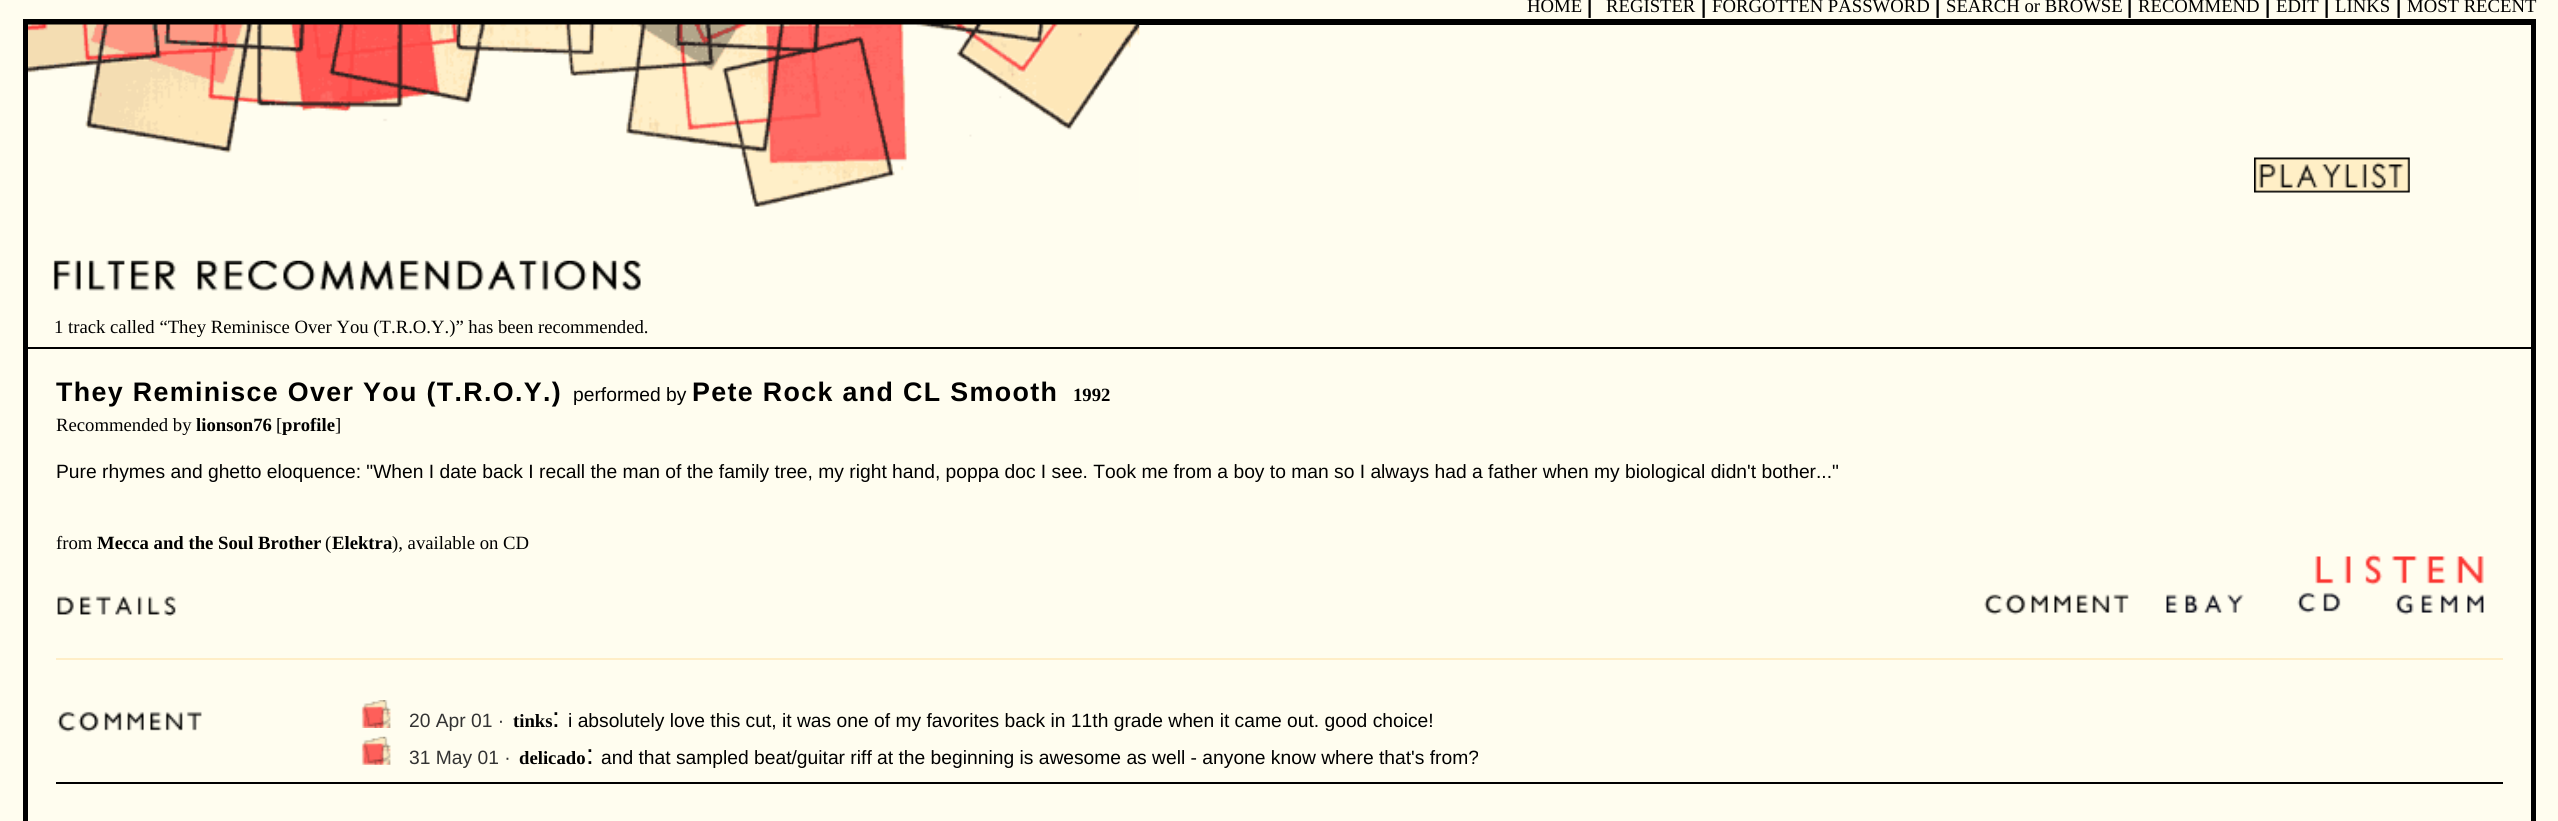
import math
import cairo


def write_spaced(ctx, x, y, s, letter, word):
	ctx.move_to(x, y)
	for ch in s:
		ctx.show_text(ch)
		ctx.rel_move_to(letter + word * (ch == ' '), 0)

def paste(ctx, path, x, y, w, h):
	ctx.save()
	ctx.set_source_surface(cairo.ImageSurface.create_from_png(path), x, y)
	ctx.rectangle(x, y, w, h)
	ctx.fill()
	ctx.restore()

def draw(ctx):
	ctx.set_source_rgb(1, 0.992, 0.937)
	ctx.paint()
	ctx.select_font_face('Liberation Serif')
	ctx.set_font_size(18.7)
	ctx.set_source_rgb(0, 0, 0)
	ctx.move_to(1527, 12)
	ctx.show_text('HOME')
	ctx.select_font_face('Liberation Sans')
	ctx.set_font_size(28)
	ctx.move_to(1586, 12)
	ctx.show_text('|')
	ctx.select_font_face('Liberation Serif')
	ctx.set_font_size(18.7)
	ctx.move_to(1606, 12)
	ctx.show_text('REGISTER')
	ctx.select_font_face('Liberation Sans')
	ctx.set_font_size(28)
	ctx.move_to(1700, 12)
	ctx.show_text('|')
	ctx.select_font_face('Liberation Serif')
	ctx.set_font_size(18.7)
	ctx.move_to(1712, 12)
	ctx.show_text('FORGOTTEN PASSWORD')
	ctx.select_font_face('Liberation Sans')
	ctx.set_font_size(28)
	ctx.move_to(1934, 12)
	ctx.show_text('|')
	ctx.select_font_face('Liberation Serif')
	ctx.set_font_size(18.7)
	ctx.move_to(1946, 12)
	ctx.show_text('SEARCH or BROWSE')
	ctx.select_font_face('Liberation Sans')
	ctx.set_font_size(28)
	ctx.move_to(2126, 12)
	ctx.show_text('|')
	ctx.select_font_face('Liberation Serif')
	ctx.set_font_size(18.7)
	ctx.move_to(2138, 12)
	ctx.show_text('RECOMMEND')
	ctx.select_font_face('Liberation Sans')
	ctx.set_font_size(28)
	ctx.move_to(2264, 12)
	ctx.show_text('|')
	ctx.select_font_face('Liberation Serif')
	ctx.set_font_size(18.7)
	ctx.move_to(2276, 12)
	ctx.show_text('EDIT')
	ctx.select_font_face('Liberation Sans')
	ctx.set_font_size(28)
	ctx.move_to(2323, 12)
	ctx.show_text('|')
	ctx.select_font_face('Liberation Serif')
	ctx.set_font_size(18.7)
	ctx.move_to(2335, 12)
	ctx.show_text('LINKS')
	ctx.select_font_face('Liberation Sans')
	ctx.set_font_size(28)
	ctx.move_to(2395, 12)
	ctx.show_text('|')
	ctx.select_font_face('Liberation Serif')
	ctx.set_font_size(18.7)
	ctx.move_to(2407, 12)
	ctx.show_text('MOST RECENT')
	ctx.rectangle(23, 19, 2513, 802)
	ctx.fill()
	ctx.set_source_rgb(1, 0.992, 0.937)
	ctx.rectangle(28, 25, 2503, 796)
	ctx.fill()
	paste(ctx, 'media/1.png', 28, 24, 1112, 183)
	paste(ctx, 'media/2.png', 53, 260, 588, 31)
	paste(ctx, 'media/3.png', 2254, 157, 156, 36)
	ctx.set_source_rgb(0, 0, 0)
	ctx.move_to(54, 333)
	ctx.show_text('1 track called “They Reminisce Over You (T.R.O.Y.)” has been recommended.')
	ctx.rectangle(28, 347, 2503, 2)
	ctx.fill()
	ctx.select_font_face('Liberation Sans', cairo.FONT_SLANT_NORMAL, cairo.FONT_WEIGHT_BOLD)
	ctx.set_font_size(26.8)
	write_spaced(ctx, 56, 401, 'They Reminisce Over You (T.R.O.Y.)', 1.35, 0)
	ctx.select_font_face('Liberation Sans')
	ctx.set_font_size(19.25)
	ctx.move_to(573, 401)
	ctx.show_text('performed by')
	ctx.select_font_face('Liberation Sans', cairo.FONT_SLANT_NORMAL, cairo.FONT_WEIGHT_BOLD)
	ctx.set_font_size(26.8)
	write_spaced(ctx, 692, 401, 'Pete Rock and CL Smooth', 1.35, 0)
	ctx.select_font_face('Liberation Serif', cairo.FONT_SLANT_NORMAL, cairo.FONT_WEIGHT_BOLD)
	ctx.set_font_size(18.7)
	ctx.move_to(1073, 401)
	ctx.show_text('1992')
	ctx.select_font_face('Liberation Serif')
	ctx.move_to(56, 431)
	ctx.show_text('Recommended by')
	ctx.select_font_face('Liberation Serif', cairo.FONT_SLANT_NORMAL, cairo.FONT_WEIGHT_BOLD)
	ctx.move_to(196, 431)
	ctx.show_text('lionson76')
	ctx.select_font_face('Liberation Serif')
	ctx.move_to(276, 431)
	ctx.show_text('[')
	ctx.select_font_face('Liberation Serif', cairo.FONT_SLANT_NORMAL, cairo.FONT_WEIGHT_BOLD)
	ctx.move_to(282, 431)
	ctx.show_text('profile')
	ctx.select_font_face('Liberation Serif')
	ctx.move_to(335, 431)
	ctx.show_text(']')
	ctx.select_font_face('Liberation Sans')
	ctx.set_font_size(19.25)
	ctx.move_to(56, 478)
	ctx.show_text('Pure rhymes and ghetto eloquence: "When I date back I recall the man of the family tree, my right hand, poppa doc I see. Took me from a boy to man so I always had a father when my biological didn\'t bother..."')
	ctx.select_font_face('Liberation Serif')
	ctx.set_font_size(18.7)
	ctx.move_to(56, 549)
	ctx.show_text('from')
	ctx.select_font_face('Liberation Serif', cairo.FONT_SLANT_NORMAL, cairo.FONT_WEIGHT_BOLD)
	ctx.move_to(97, 549)
	ctx.show_text('Mecca and the Soul Brother')
	ctx.select_font_face('Liberation Serif')
	ctx.move_to(325, 549)
	ctx.show_text('(')
	ctx.select_font_face('Liberation Serif', cairo.FONT_SLANT_NORMAL, cairo.FONT_WEIGHT_BOLD)
	ctx.move_to(332, 549)
	ctx.show_text('Elektra')
	ctx.select_font_face('Liberation Serif')
	ctx.move_to(392, 549)
	ctx.show_text('), available on CD')
	paste(ctx, 'media/4.png', 57, 596, 119, 20)
	paste(ctx, 'media/5.png', 2315, 554, 169, 31)
	paste(ctx, 'media/6.png', 1984, 594, 145, 21)
	paste(ctx, 'media/7.png', 2166, 594, 78, 19)
	paste(ctx, 'media/8.png', 2297, 592, 44, 21)
	paste(ctx, 'media/9.png', 2395, 594, 89, 21)
	ctx.set_source_rgb(1, 0.933, 0.78)
	ctx.rectangle(56, 658, 2447, 2)
	ctx.fill()
	paste(ctx, 'media/10.png', 57, 711, 145, 21)
	paste(ctx, 'media/11.png', 361, 700, 30, 28)
	ctx.select_font_face('Liberation Sans')
	ctx.set_font_size(19.25)
	ctx.set_source_rgb(0.2, 0.2, 0.2)
	ctx.move_to(409, 727)
	ctx.show_text('20 Apr 01 ·')
	ctx.select_font_face('Liberation Serif', cairo.FONT_SLANT_NORMAL, cairo.FONT_WEIGHT_BOLD)
	ctx.set_font_size(18.7)
	ctx.set_source_rgb(0, 0, 0)
	ctx.move_to(513, 727)
	ctx.show_text('tinks')
	ctx.select_font_face('Liberation Sans')
	ctx.set_font_size(28)
	ctx.move_to(552, 727)
	ctx.show_text(':')
	ctx.set_font_size(19.25)
	ctx.move_to(568, 727)
	ctx.show_text('i absolutely love this cut, it was one of my favorites back in 11th grade when it came out. good choice!')
	paste(ctx, 'media/12.png', 361, 736, 30, 29)
	ctx.set_source_rgb(0.2, 0.2, 0.2)
	ctx.move_to(409, 764)
	ctx.show_text('31 May 01 ·')
	ctx.select_font_face('Liberation Serif', cairo.FONT_SLANT_NORMAL, cairo.FONT_WEIGHT_BOLD)
	ctx.set_font_size(18.7)
	ctx.set_source_rgb(0, 0, 0)
	ctx.move_to(519, 764)
	ctx.show_text('delicado')
	ctx.select_font_face('Liberation Sans')
	ctx.set_font_size(28)
	ctx.move_to(586, 764)
	ctx.show_text(':')
	ctx.set_font_size(19.25)
	ctx.move_to(601, 764)
	ctx.show_text('and that sampled beat/guitar riff at the beginning is awesome as well - anyone know where that\'s from?')
	ctx.rectangle(56, 782, 2447, 2)
	ctx.fill()


surface = cairo.ImageSurface(cairo.FORMAT_RGB24, 2558, 821)
ctx = cairo.Context(surface)
options = cairo.FontOptions()
options.set_hint_metrics(cairo.HINT_METRICS_OFF)
options.set_hint_style(cairo.HINT_STYLE_NONE)
ctx.set_font_options(options)
ctx.set_miter_limit(4)
draw(ctx)
surface.write_to_png('image.png')
